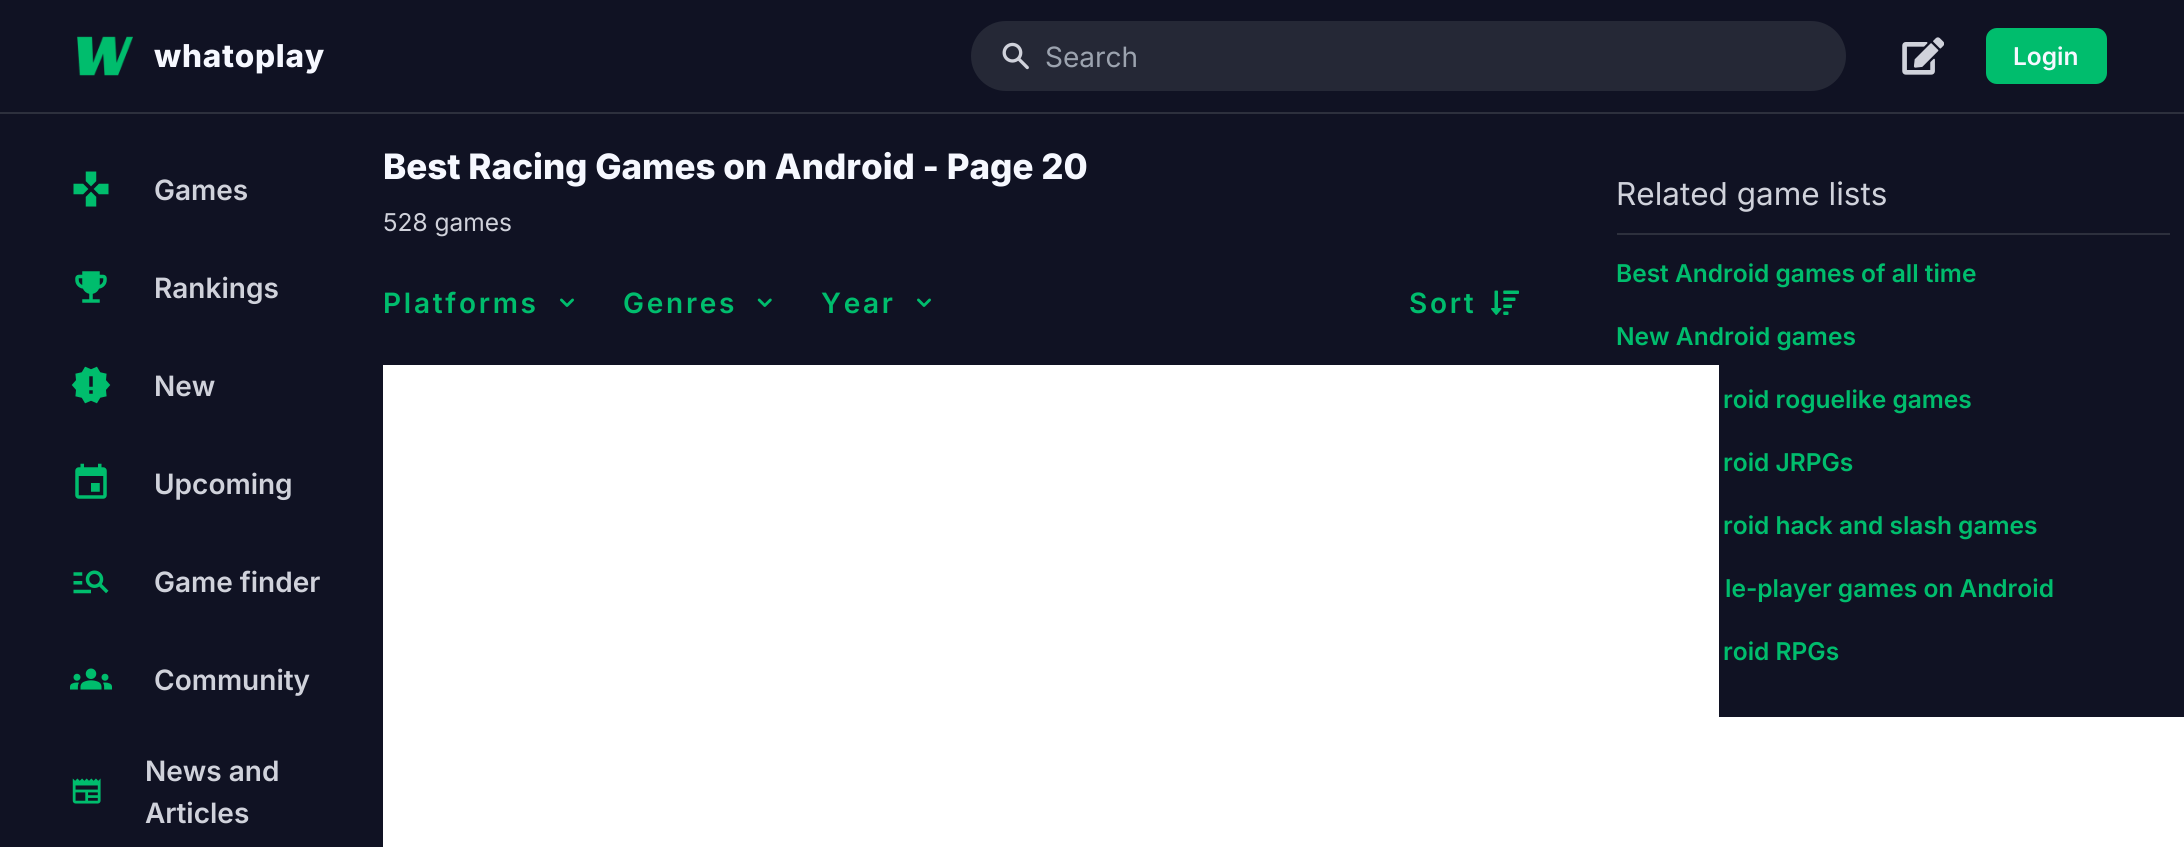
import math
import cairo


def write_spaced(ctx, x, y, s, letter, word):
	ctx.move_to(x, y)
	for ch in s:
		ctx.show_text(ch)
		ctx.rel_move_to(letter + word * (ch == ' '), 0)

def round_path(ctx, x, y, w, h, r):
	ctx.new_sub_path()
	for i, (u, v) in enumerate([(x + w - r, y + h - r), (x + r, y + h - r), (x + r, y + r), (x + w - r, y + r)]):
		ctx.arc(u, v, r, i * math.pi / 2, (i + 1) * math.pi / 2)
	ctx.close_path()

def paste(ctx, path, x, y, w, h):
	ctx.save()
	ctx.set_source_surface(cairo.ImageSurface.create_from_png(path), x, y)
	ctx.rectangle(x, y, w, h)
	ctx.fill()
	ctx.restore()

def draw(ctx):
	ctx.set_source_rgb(0.063, 0.071, 0.137)
	ctx.paint()
	ctx.set_source_rgb(0.176, 0.188, 0.239)
	ctx.rectangle(0, 112, 2184, 2)
	ctx.fill()
	paste(ctx, 'media/1.png', 77, 36, 56, 40)
	ctx.select_font_face('Inter ExtraBold')
	ctx.set_font_size(31.5)
	ctx.set_source_rgb(0.961, 0.969, 1)
	write_spaced(ctx, 154, 67, 'whatoplay', 0.75, 0)
	ctx.set_source_rgb(0.145, 0.157, 0.212)
	round_path(ctx, 971, 21, 875, 70, 35)
	ctx.fill()
	paste(ctx, 'media/2.png', 1002, 42, 27, 28)
	ctx.select_font_face('Inter')
	ctx.set_font_size(28)
	ctx.set_source_rgb(0.612, 0.639, 0.686)
	ctx.move_to(1045, 67)
	ctx.show_text('Search')
	paste(ctx, 'media/3.png', 1902, 37, 42, 38)
	ctx.set_source_rgb(0, 0.741, 0.427)
	round_path(ctx, 1986, 28, 121, 56, 11)
	ctx.fill()
	ctx.select_font_face('Inter SemiBold')
	ctx.set_font_size(24.5)
	ctx.set_source_rgb(0.961, 0.969, 1)
	ctx.move_to(2013, 65)
	ctx.show_text('Login')
	paste(ctx, 'media/4.png', 73, 171, 36, 36)
	ctx.set_font_size(28)
	ctx.set_source_rgb(0.816, 0.824, 0.859)
	ctx.move_to(154, 200)
	ctx.show_text('Games')
	paste(ctx, 'media/5.png', 75, 271, 32, 32)
	ctx.move_to(154, 298)
	ctx.show_text('Rankings')
	paste(ctx, 'media/6.png', 71, 366, 40, 38)
	ctx.move_to(154, 396)
	ctx.show_text('New')
	paste(ctx, 'media/7.png', 75, 463, 32, 36)
	ctx.move_to(154, 494)
	ctx.show_text('Upcoming')
	paste(ctx, 'media/8.png', 73, 570, 36, 24)
	ctx.move_to(154, 592)
	ctx.show_text('Game finder')
	paste(ctx, 'media/9.png', 70, 668, 42, 22)
	ctx.move_to(154, 690)
	ctx.show_text('Community')
	paste(ctx, 'media/10.png', 72, 778, 29, 26)
	ctx.move_to(145, 781)
	ctx.show_text('News and')
	ctx.move_to(145, 823)
	ctx.show_text('Articles')
	ctx.select_font_face('Inter ExtraBold')
	ctx.set_font_size(35)
	ctx.set_source_rgb(0.961, 0.969, 1)
	ctx.move_to(383, 179)
	ctx.show_text('Best Racing Games on Android - Page 20')
	ctx.select_font_face('Inter')
	ctx.set_font_size(24.5)
	ctx.set_source_rgb(0.816, 0.824, 0.859)
	ctx.move_to(383, 231)
	ctx.show_text('528 games')
	ctx.select_font_face('Inter SemiBold')
	ctx.set_font_size(28)
	ctx.set_source_rgb(0, 0.741, 0.427)
	write_spaced(ctx, 383, 313, 'Platforms', 2.75, 0)
	paste(ctx, 'media/11.png', 560, 298, 14, 9)
	write_spaced(ctx, 623, 313, 'Genres', 2.75, 0)
	paste(ctx, 'media/12.png', 757, 298, 15, 9)
	write_spaced(ctx, 821, 313, 'Year', 2.75, 0)
	paste(ctx, 'media/11.png', 917, 298, 14, 9)
	write_spaced(ctx, 1409, 313, 'Sort', 2.75, 0)
	paste(ctx, 'media/13.png', 1491, 290, 28, 25)
	ctx.set_source_rgb(1, 1, 1)
	ctx.rectangle(383, 365, 1336, 482)
	ctx.fill()
	ctx.select_font_face('Inter')
	ctx.set_font_size(31.5)
	ctx.set_source_rgb(0.816, 0.824, 0.859)
	ctx.move_to(1616, 205)
	ctx.show_text('Related game lists')
	ctx.set_source_rgb(0.176, 0.188, 0.239)
	ctx.rectangle(1617, 233, 553, 2)
	ctx.fill()
	ctx.select_font_face('Inter SemiBold')
	ctx.set_font_size(24.5)
	ctx.set_source_rgb(0, 0.741, 0.427)
	for x, y, s in [
		(1616, 282, 'Best Android games of all time'),
		(1616, 345, 'New Android games'),
		(1723, 408, 'roid roguelike games'),
		(1723, 471, 'roid JRPGs'),
		(1723, 534, 'roid hack and slash games'),
		(1725, 597, 'le-player games on Android'),
		(1723, 660, 'roid RPGs'),
	]:
		ctx.move_to(x, y)
		ctx.show_text(s)
	ctx.set_source_rgb(1, 1, 1)
	ctx.rectangle(1719, 717, 465, 130)
	ctx.fill()


surface = cairo.ImageSurface(cairo.FORMAT_RGB24, 2184, 847)
ctx = cairo.Context(surface)
options = cairo.FontOptions()
options.set_hint_metrics(cairo.HINT_METRICS_OFF)
options.set_hint_style(cairo.HINT_STYLE_NONE)
ctx.set_font_options(options)
ctx.set_miter_limit(4)
draw(ctx)
surface.write_to_png('image.png')
